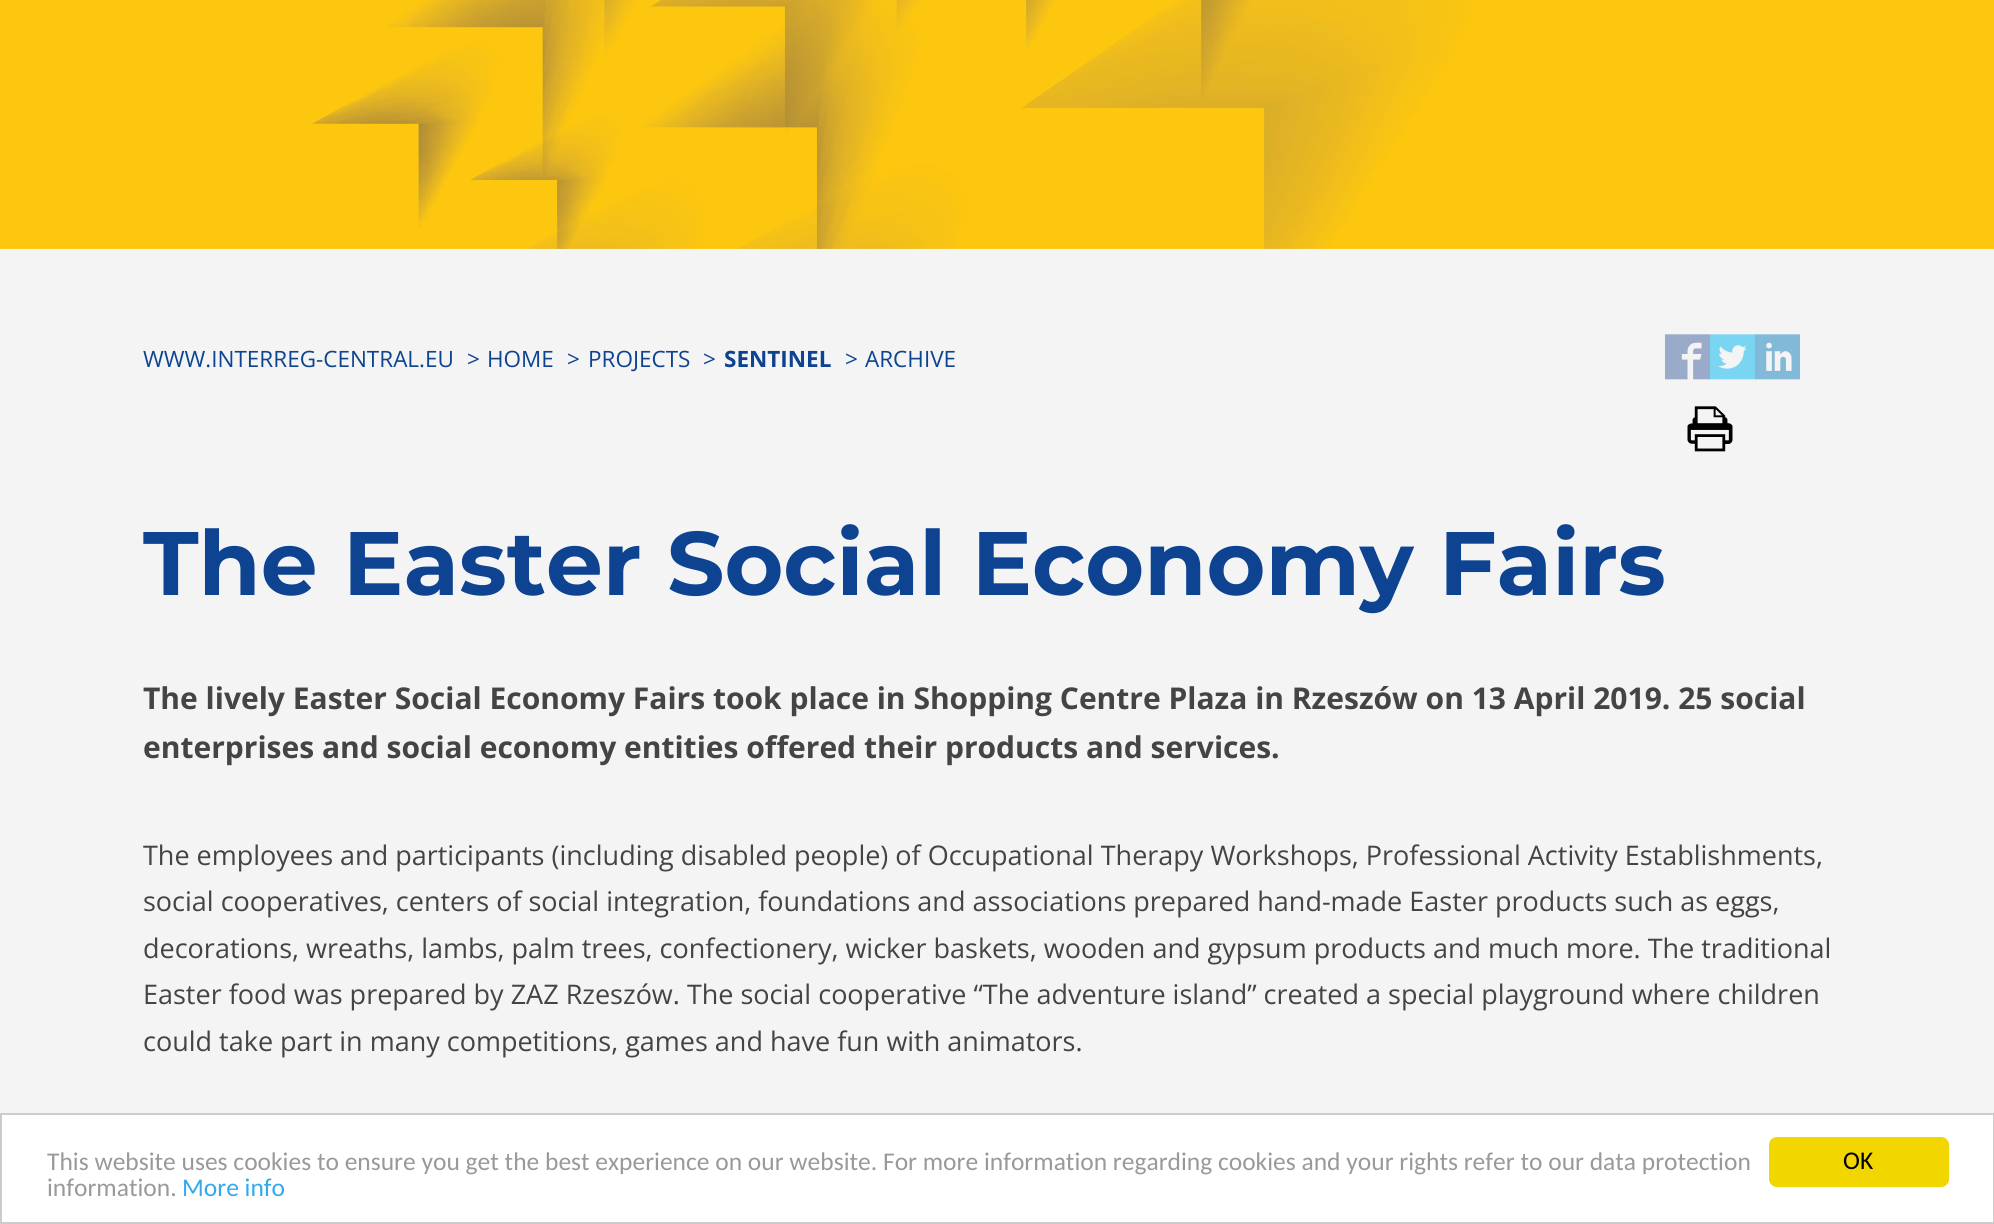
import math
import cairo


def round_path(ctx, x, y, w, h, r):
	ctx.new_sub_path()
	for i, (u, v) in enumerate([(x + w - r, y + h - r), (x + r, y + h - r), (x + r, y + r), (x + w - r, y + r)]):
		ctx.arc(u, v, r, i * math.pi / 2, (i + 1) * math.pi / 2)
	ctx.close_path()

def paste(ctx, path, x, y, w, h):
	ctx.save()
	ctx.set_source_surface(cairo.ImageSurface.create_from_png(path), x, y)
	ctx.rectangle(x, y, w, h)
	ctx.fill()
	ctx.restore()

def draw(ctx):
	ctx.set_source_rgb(0.957, 0.957, 0.957)
	ctx.paint()
	paste(ctx, 'media/1.png', 0, 0, 1994, 249)
	ctx.select_font_face('Open Sans')
	ctx.set_font_size(22.5)
	ctx.set_source_rgb(0.051, 0.263, 0.569)
	for x, y, s in [
		(143, 367, 'WWW.INTERREG-CENTRAL.EU'),
		(467, 367, '>'),
		(487, 367, 'HOME'),
		(567, 367, '>'),
		(588, 367, 'PROJECTS'),
		(703, 367, '>'),
	]:
		ctx.move_to(x, y)
		ctx.show_text(s)
	ctx.select_font_face('Open Sans', cairo.FONT_SLANT_NORMAL, cairo.FONT_WEIGHT_BOLD)
	ctx.move_to(724, 367)
	ctx.show_text('SENTINEL')
	ctx.select_font_face('Open Sans')
	ctx.move_to(845, 367)
	ctx.show_text('>')
	ctx.move_to(865, 367)
	ctx.show_text('ARCHIVE')
	paste(ctx, 'media/2.png', 1665, 334, 45, 46)
	paste(ctx, 'media/3.png', 1710, 334, 45, 46)
	paste(ctx, 'media/4.png', 1755, 334, 45, 46)
	paste(ctx, 'media/5.png', 1687, 406, 46, 46)
	ctx.select_font_face('Montserrat', cairo.FONT_SLANT_NORMAL, cairo.FONT_WEIGHT_BOLD)
	ctx.set_font_size(90)
	ctx.move_to(143, 595)
	ctx.show_text('The Easter Social Economy Fairs')
	ctx.select_font_face('Open Sans', cairo.FONT_SLANT_NORMAL, cairo.FONT_WEIGHT_BOLD)
	ctx.set_font_size(30)
	ctx.set_source_rgb(0.267, 0.267, 0.267)
	ctx.move_to(143, 709)
	ctx.show_text('The lively Easter Social Economy Fairs took place in Shopping Centre Plaza in Rzeszów on 13 April 2019. 25 social')
	ctx.move_to(143, 758)
	ctx.show_text('enterprises and social economy entities offered their products and services.')
	ctx.select_font_face('Open Sans')
	ctx.set_font_size(27)
	for x, y, s in [
		(143, 865, 'The employees and participants (including disabled people) of Occupational Therapy Workshops, Professional Activity Establishments,'),
		(143, 911, 'social cooperatives, centers of social integration, foundations and associations prepared hand-made Easter products such as eggs,'),
		(143, 958, 'decorations, wreaths, lambs, palm trees, confectionery, wicker baskets, wooden and gypsum products and much more. The traditional'),
		(143, 1004, 'Easter food was prepared by ZAZ Rzeszów. The social cooperative “The adventure island” created a special playground where children'),
		(143, 1051, 'could take part in many competitions, games and have fun with animators.'),
	]:
		ctx.move_to(x, y)
		ctx.show_text(s)
	ctx.set_source_rgb(1, 1, 1)
	ctx.rectangle(1, 1114, 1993, 109)
	ctx.fill_preserve()
	ctx.set_source_rgb(0.8, 0.8, 0.8)
	ctx.stroke()
	ctx.select_font_face('Carlito')
	ctx.set_font_size(25.5)
	ctx.set_source_rgb(0.6, 0.6, 0.6)
	ctx.move_to(47, 1170)
	ctx.show_text('This website uses cookies to ensure you get the best experience on our website. For more information regarding cookies and your rights refer to our data protection')
	ctx.move_to(47, 1196)
	ctx.show_text('information.')
	ctx.set_source_rgb(0.192, 0.659, 0.941)
	ctx.move_to(182, 1196)
	ctx.show_text('More info')
	ctx.set_source_rgb(0.945, 0.839, 0)
	round_path(ctx, 1769, 1137, 180, 50, 8)
	ctx.fill()
	ctx.set_source_rgb(0, 0, 0)
	ctx.move_to(1843, 1169)
	ctx.show_text('OK')


surface = cairo.ImageSurface(cairo.FORMAT_RGB24, 1994, 1224)
ctx = cairo.Context(surface)
options = cairo.FontOptions()
options.set_hint_metrics(cairo.HINT_METRICS_OFF)
options.set_hint_style(cairo.HINT_STYLE_NONE)
ctx.set_font_options(options)
ctx.set_miter_limit(4)
draw(ctx)
surface.write_to_png('image.png')
